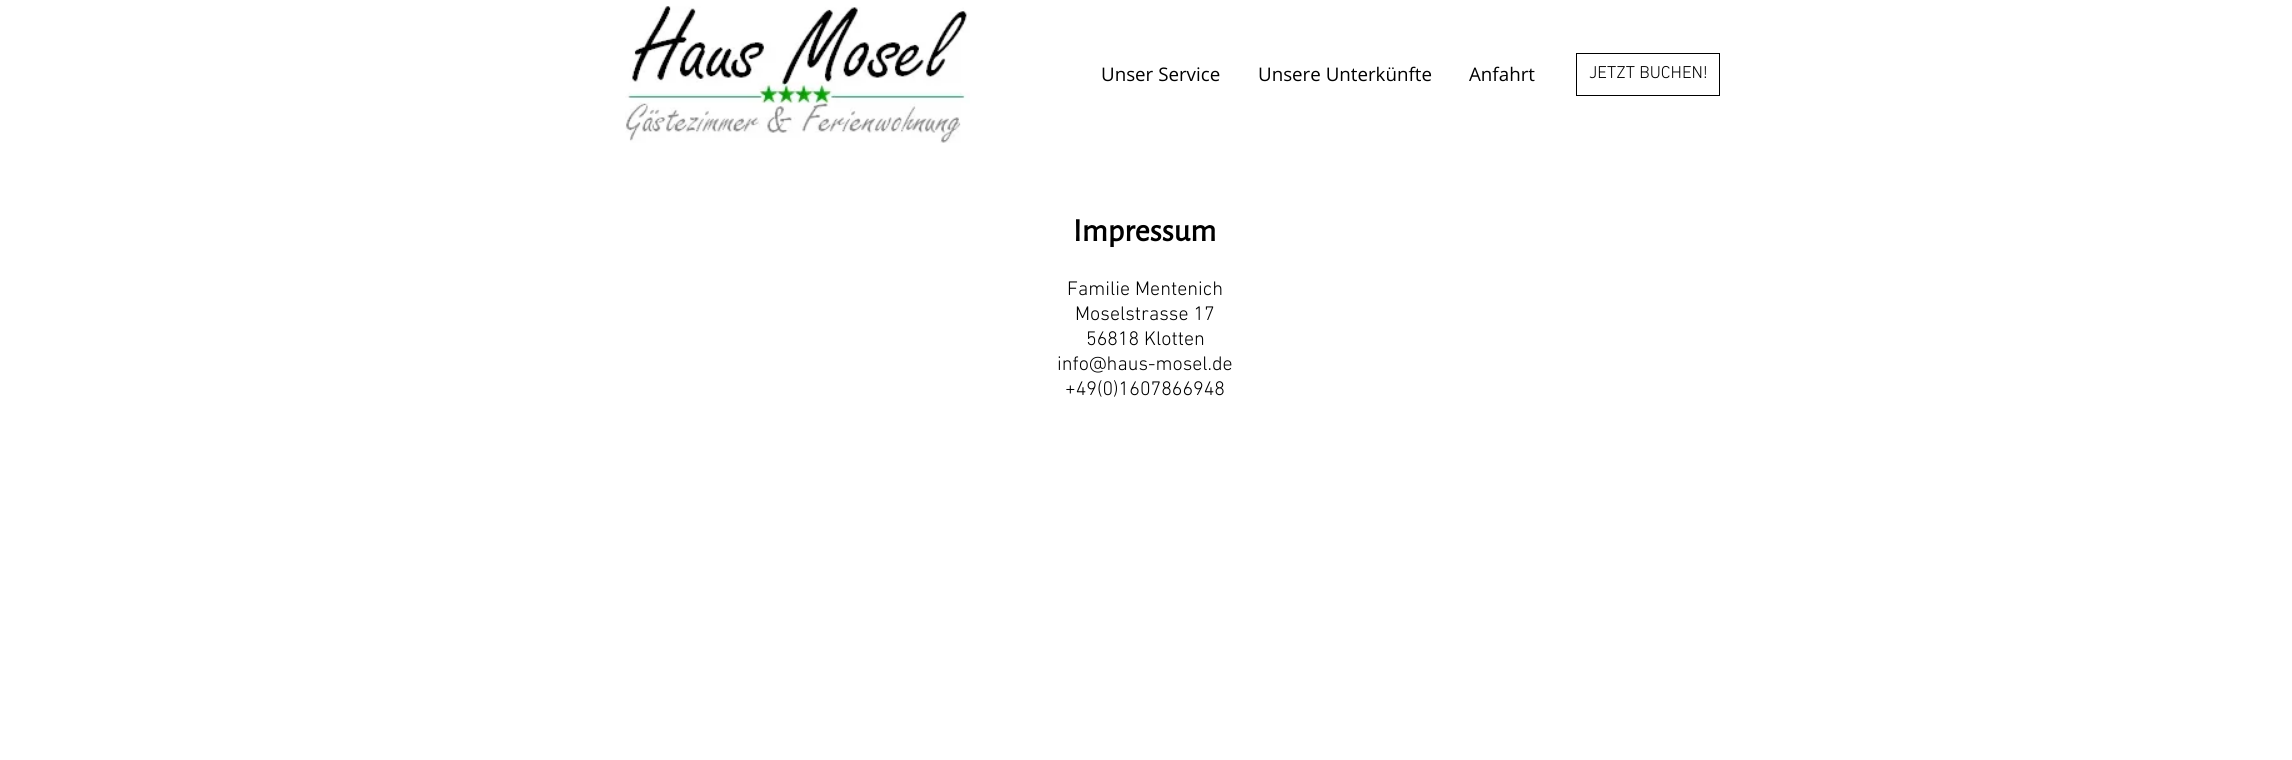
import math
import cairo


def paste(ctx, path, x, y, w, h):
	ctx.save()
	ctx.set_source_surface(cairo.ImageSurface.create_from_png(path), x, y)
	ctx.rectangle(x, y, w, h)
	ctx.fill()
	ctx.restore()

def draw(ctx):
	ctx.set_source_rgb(1, 1, 1)
	ctx.paint()
	paste(ctx, 'media/1.png', 625, 6, 345, 137)
	ctx.select_font_face('Open Sans')
	ctx.set_font_size(18.75)
	ctx.set_source_rgb(0, 0, 0)
	for x, y, s in [
		(1101, 81, 'Unser Service'),
		(1258, 81, 'Unsere Unterkünfte'),
		(1469, 81, 'Anfahrt'),
	]:
		ctx.move_to(x, y)
		ctx.show_text(s)
	ctx.rectangle(1576.5, 53.5, 143, 42)
	ctx.set_line_width(1)
	ctx.stroke()
	ctx.select_font_face('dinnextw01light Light')
	ctx.set_font_size(17.5)
	ctx.move_to(1589, 78)
	ctx.show_text('JETZT BUCHEN!')
	ctx.select_font_face('Alegreya Sans', cairo.FONT_SLANT_NORMAL, cairo.FONT_WEIGHT_BOLD)
	ctx.set_font_size(32.5)
	ctx.move_to(1073, 241)
	ctx.show_text('Impressum')
	ctx.select_font_face('dinnextw01light Light')
	ctx.set_font_size(20)
	for x, y, s in [
		(1067, 295, 'Familie Mentenich'),
		(1075, 320, 'Moselstrasse 17'),
		(1086, 345, '56818 Klotten'),
		(1057, 370, 'info@haus-mosel.de'),
		(1065, 395, '+49(0)1607866948'),
	]:
		ctx.move_to(x, y)
		ctx.show_text(s)


surface = cairo.ImageSurface(cairo.FORMAT_RGB24, 2292, 760)
ctx = cairo.Context(surface)
options = cairo.FontOptions()
options.set_hint_metrics(cairo.HINT_METRICS_OFF)
options.set_hint_style(cairo.HINT_STYLE_NONE)
ctx.set_font_options(options)
ctx.set_miter_limit(4)
draw(ctx)
surface.write_to_png('image.png')
